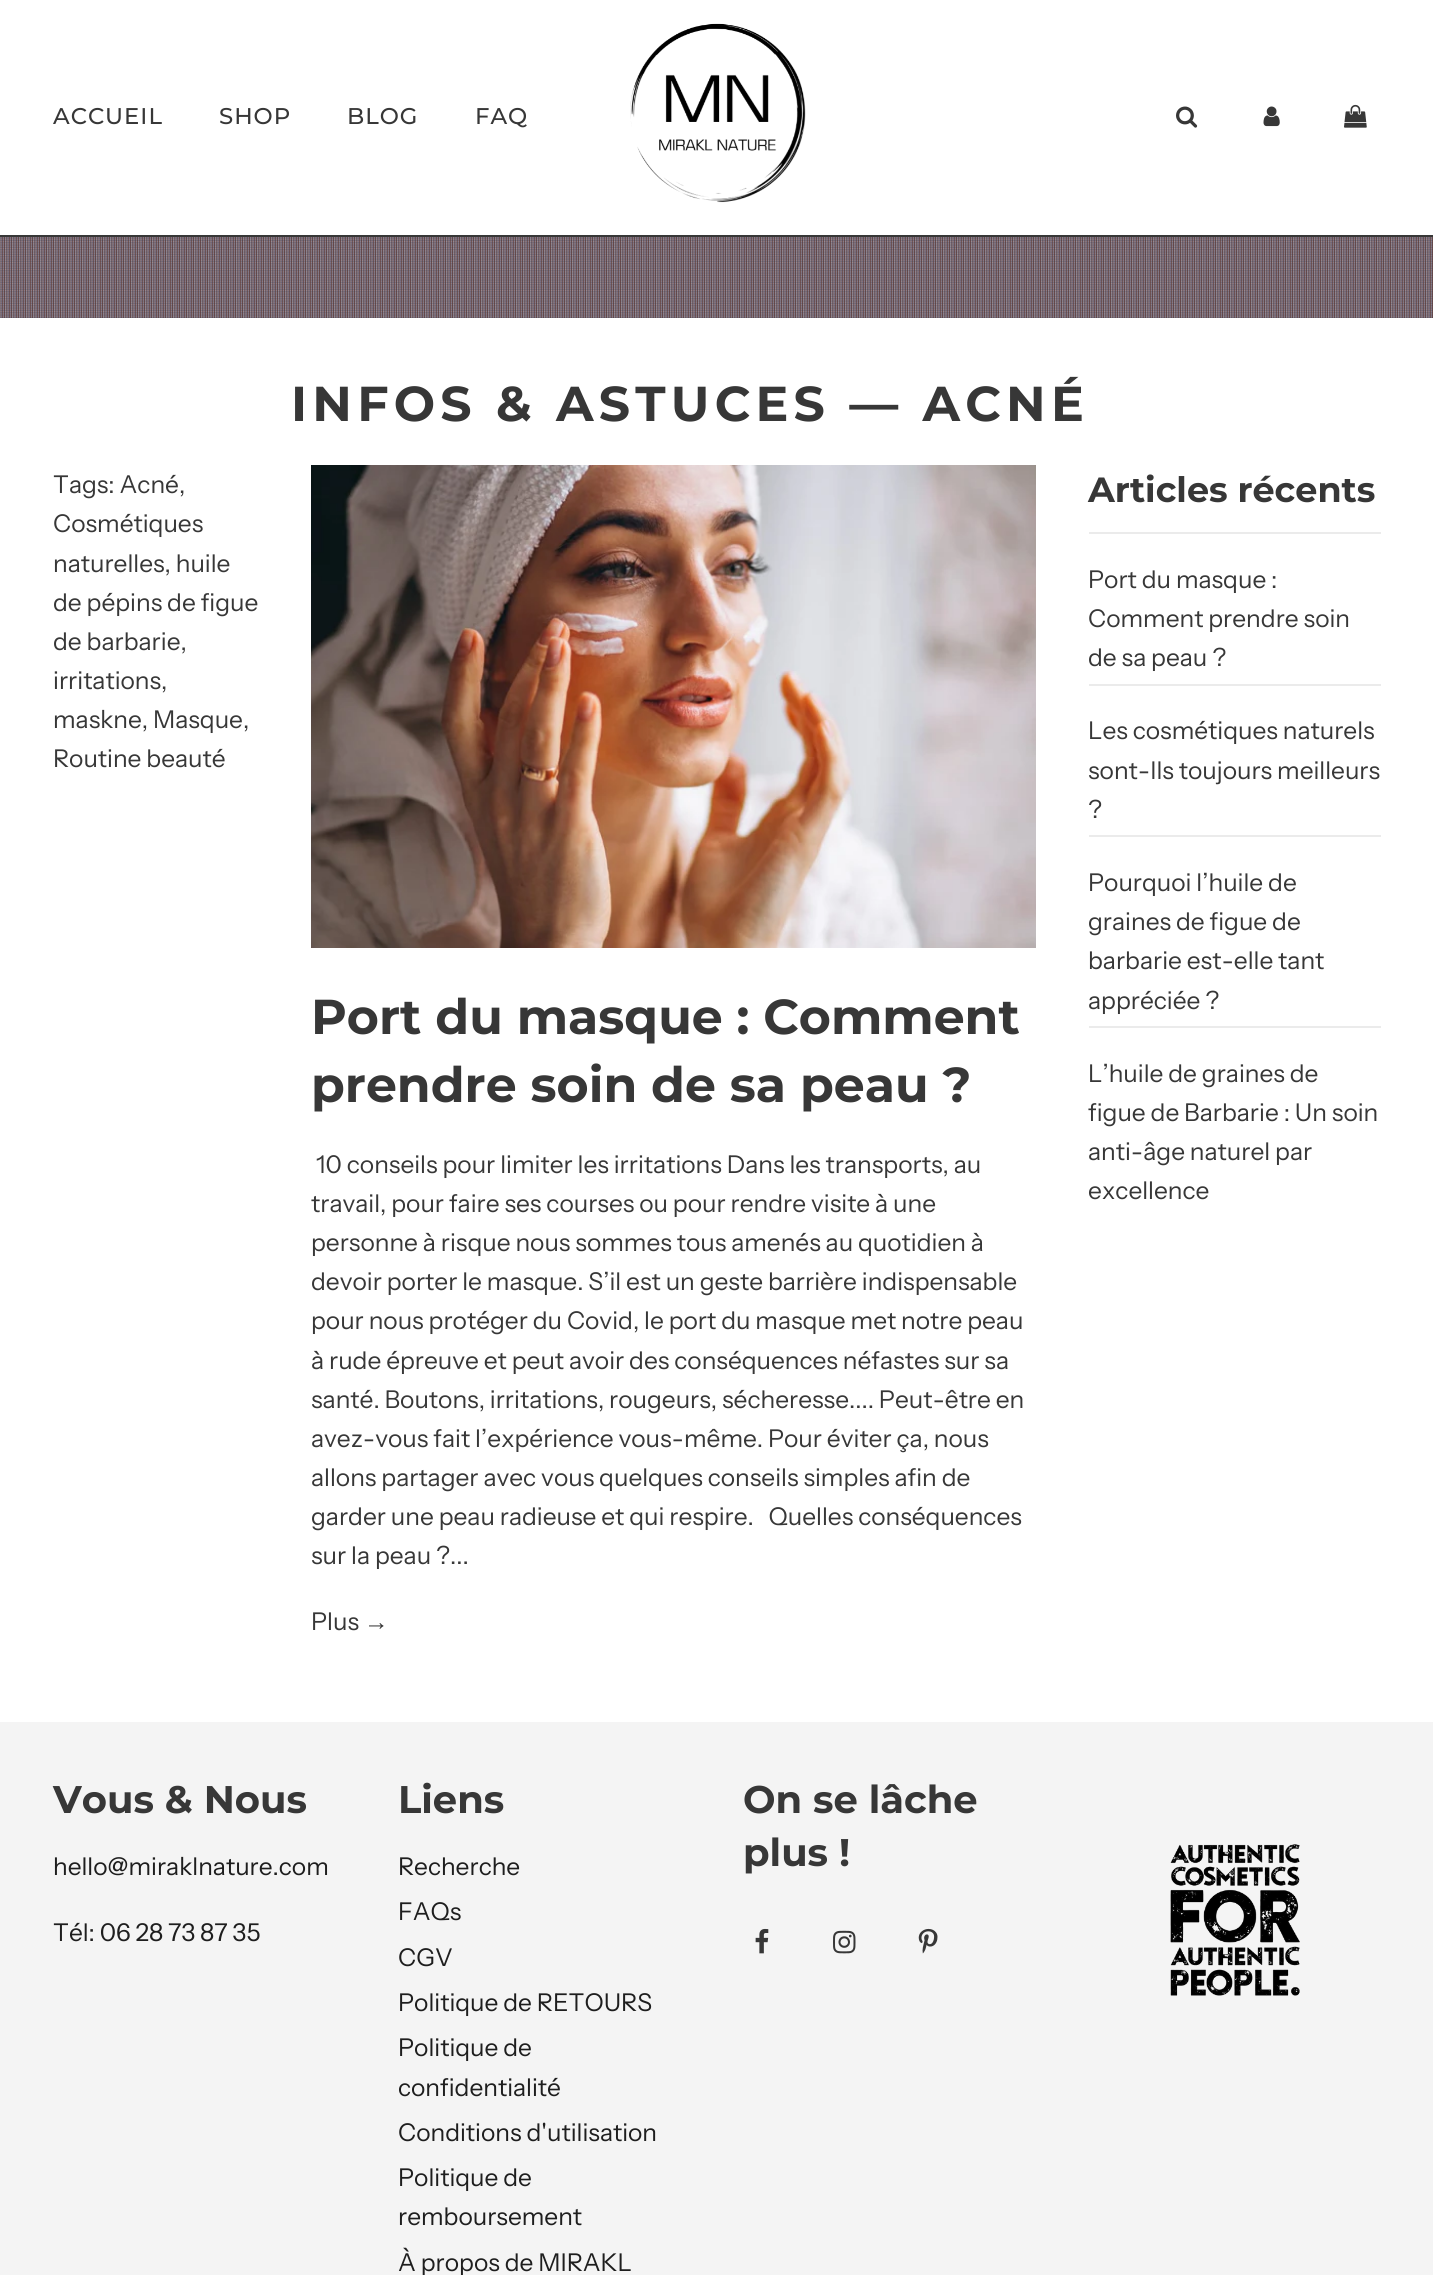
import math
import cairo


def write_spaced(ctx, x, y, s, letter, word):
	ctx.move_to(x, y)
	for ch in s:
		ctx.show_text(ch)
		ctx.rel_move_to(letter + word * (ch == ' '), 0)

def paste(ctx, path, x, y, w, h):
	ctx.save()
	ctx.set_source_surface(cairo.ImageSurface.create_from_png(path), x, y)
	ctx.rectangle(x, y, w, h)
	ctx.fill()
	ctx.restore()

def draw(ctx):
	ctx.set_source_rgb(1, 1, 1)
	ctx.paint()
	ctx.set_source_rgb(0.216, 0.216, 0.216)
	ctx.rectangle(0, 235, 1433, 2)
	ctx.fill()
	ctx.select_font_face('Montserrat Medium')
	ctx.set_font_size(22.75)
	for x, y, s in [
		(53, 124, 'ACCUEIL'),
		(219, 124, 'SHOP'),
		(347, 124, 'BLOG'),
		(475, 124, 'FAQ'),
	]:
		write_spaced(ctx, x, y, s, 1, 0)
	paste(ctx, 'media/1.png', 630, 23, 176, 180)
	paste(ctx, 'media/2.png', 1176, 106, 22, 22)
	paste(ctx, 'media/3.png', 1263, 106, 17, 21)
	paste(ctx, 'media/4.png', 1344, 104, 23, 24)
	paste(ctx, 'media/5.png', 0, 237, 1433, 81)
	ctx.select_font_face('Montserrat', cairo.FONT_SLANT_NORMAL, cairo.FONT_WEIGHT_BOLD)
	ctx.set_font_size(49)
	write_spaced(ctx, 291, 421, 'INFOS & ASTUCES — ACNÉ', 5.25, 0)
	ctx.select_font_face('Instrument Sans')
	ctx.set_font_size(24.5)
	for x, y, s in [
		(53, 493, 'Tags: Acné,'),
		(53, 532, 'Cosmétiques'),
		(53, 572, 'naturelles, huile'),
		(53, 611, 'de pépins de figue'),
		(53, 650, 'de barbarie,'),
		(53, 689, 'irritations,'),
		(53, 728, 'maskne, Masque,'),
		(53, 767, 'Routine beauté'),
	]:
		ctx.move_to(x, y)
		ctx.show_text(s)
	paste(ctx, 'media/6.png', 311, 465, 725, 483)
	ctx.select_font_face('Montserrat', cairo.FONT_SLANT_NORMAL, cairo.FONT_WEIGHT_BOLD)
	ctx.set_font_size(49)
	ctx.move_to(311, 1034)
	ctx.show_text('Port du masque : Comment')
	ctx.move_to(311, 1102)
	ctx.show_text('prendre soin de sa peau ?')
	ctx.select_font_face('Instrument Sans')
	ctx.set_font_size(24.5)
	for x, y, s in [
		(316, 1173, '10 conseils pour limiter les irritations Dans les transports, au'),
		(311, 1212, 'travail, pour faire ses courses ou pour rendre visite à une'),
		(311, 1251, 'personne à risque nous sommes tous amenés au quotidien à'),
		(311, 1290, 'devoir porter le masque. S’il est un geste barrière indispensable'),
		(311, 1329, 'pour nous protéger du Covid, le port du masque met notre peau'),
		(311, 1369, 'à rude épreuve et peut avoir des conséquences néfastes sur sa'),
		(311, 1408, 'santé. Boutons, irritations, rougeurs, sécheresse.... Peut-être en'),
		(311, 1447, 'avez-vous fait l’expérience vous-même. Pour éviter ça, nous'),
		(311, 1486, 'allons partager avec vous quelques conseils simples afin de'),
		(311, 1525, 'garder une peau radieuse et qui respire.   Quelles conséquences'),
		(311, 1564, 'sur la peau ?...'),
		(311, 1630, 'Plus'),
	]:
		ctx.move_to(x, y)
		ctx.show_text(s)
	ctx.select_font_face('Liberation Sans')
	ctx.move_to(364, 1630)
	ctx.show_text('→')
	ctx.select_font_face('Montserrat', cairo.FONT_SLANT_NORMAL, cairo.FONT_WEIGHT_BOLD)
	ctx.set_font_size(35)
	ctx.move_to(1088, 502)
	ctx.show_text('Articles récents')
	ctx.set_source_rgb(0.918, 0.918, 0.918)
	ctx.rectangle(1089, 532, 292, 2)
	ctx.fill()
	ctx.select_font_face('Instrument Sans')
	ctx.set_font_size(24.5)
	ctx.set_source_rgb(0.216, 0.216, 0.216)
	for x, y, s in [
		(1088, 588, 'Port du masque :'),
		(1088, 627, 'Comment prendre soin'),
		(1088, 666, 'de sa peau ?'),
	]:
		ctx.move_to(x, y)
		ctx.show_text(s)
	ctx.set_source_rgb(0.918, 0.918, 0.918)
	ctx.rectangle(1089, 684, 292, 2)
	ctx.fill()
	ctx.set_source_rgb(0.216, 0.216, 0.216)
	for x, y, s in [
		(1088, 739, 'Les cosmétiques naturels'),
		(1088, 779, 'sont-Ils toujours meilleurs'),
		(1088, 818, '?'),
	]:
		ctx.move_to(x, y)
		ctx.show_text(s)
	ctx.set_source_rgb(0.918, 0.918, 0.918)
	ctx.rectangle(1089, 835, 292, 2)
	ctx.fill()
	ctx.set_source_rgb(0.216, 0.216, 0.216)
	for x, y, s in [
		(1088, 891, 'Pourquoi l’huile de'),
		(1088, 930, 'graines de figue de'),
		(1088, 969, 'barbarie est-elle tant'),
		(1088, 1009, 'appréciée ?'),
	]:
		ctx.move_to(x, y)
		ctx.show_text(s)
	ctx.set_source_rgb(0.918, 0.918, 0.918)
	ctx.rectangle(1089, 1026, 292, 2)
	ctx.fill()
	ctx.set_source_rgb(0.216, 0.216, 0.216)
	for x, y, s in [
		(1088, 1082, 'L’huile de graines de'),
		(1088, 1121, 'figue de Barbarie : Un soin'),
		(1088, 1160, 'anti-âge naturel par'),
		(1088, 1199, 'excellence'),
	]:
		ctx.move_to(x, y)
		ctx.show_text(s)
	ctx.set_source_rgb(0.957, 0.957, 0.957)
	ctx.rectangle(0, 1722, 1433, 553)
	ctx.fill()
	ctx.select_font_face('Montserrat', cairo.FONT_SLANT_NORMAL, cairo.FONT_WEIGHT_BOLD)
	ctx.set_font_size(38.5)
	ctx.set_source_rgb(0.216, 0.216, 0.216)
	ctx.move_to(53, 1813)
	ctx.show_text('Vous & Nous')
	ctx.select_font_face('Instrument Sans')
	ctx.set_font_size(24.5)
	ctx.set_source_rgb(0.118, 0.118, 0.118)
	ctx.move_to(53, 1875)
	ctx.show_text('hello@miraklnature.com')
	ctx.move_to(53, 1941)
	ctx.show_text('Tél: 06 28 73 87 35')
	ctx.select_font_face('Montserrat', cairo.FONT_SLANT_NORMAL, cairo.FONT_WEIGHT_BOLD)
	ctx.set_font_size(38.5)
	ctx.set_source_rgb(0.216, 0.216, 0.216)
	ctx.move_to(398, 1813)
	ctx.show_text('Liens')
	ctx.select_font_face('Instrument Sans')
	ctx.set_font_size(24.5)
	ctx.set_source_rgb(0.118, 0.118, 0.118)
	for x, y, s in [
		(398, 1875, 'Recherche'),
		(398, 1920, 'FAQs'),
		(398, 1966, 'CGV'),
		(398, 2011, 'Politique de RETOURS'),
		(398, 2056, 'Politique de'),
		(398, 2096, 'confidentialité'),
		(398, 2141, 'Conditions d\'utilisation'),
		(398, 2186, 'Politique de'),
		(398, 2225, 'remboursement'),
		(398, 2271, 'À propos de MIRAKL'),
	]:
		ctx.move_to(x, y)
		ctx.show_text(s)
	ctx.select_font_face('Montserrat', cairo.FONT_SLANT_NORMAL, cairo.FONT_WEIGHT_BOLD)
	ctx.set_font_size(38.5)
	ctx.set_source_rgb(0.216, 0.216, 0.216)
	ctx.move_to(743, 1813)
	ctx.show_text('On se lâche')
	ctx.move_to(743, 1866)
	ctx.show_text('plus !')
	paste(ctx, 'media/7.png', 755, 1928, 14, 26)
	paste(ctx, 'media/8.png', 833, 1930, 23, 24)
	paste(ctx, 'media/9.png', 918, 1928, 20, 26)
	paste(ctx, 'media/10.png', 1170, 1844, 130, 152)


surface = cairo.ImageSurface(cairo.FORMAT_RGB24, 1433, 2275)
ctx = cairo.Context(surface)
options = cairo.FontOptions()
options.set_hint_metrics(cairo.HINT_METRICS_OFF)
options.set_hint_style(cairo.HINT_STYLE_NONE)
ctx.set_font_options(options)
ctx.set_miter_limit(4)
draw(ctx)
surface.write_to_png('image.png')
